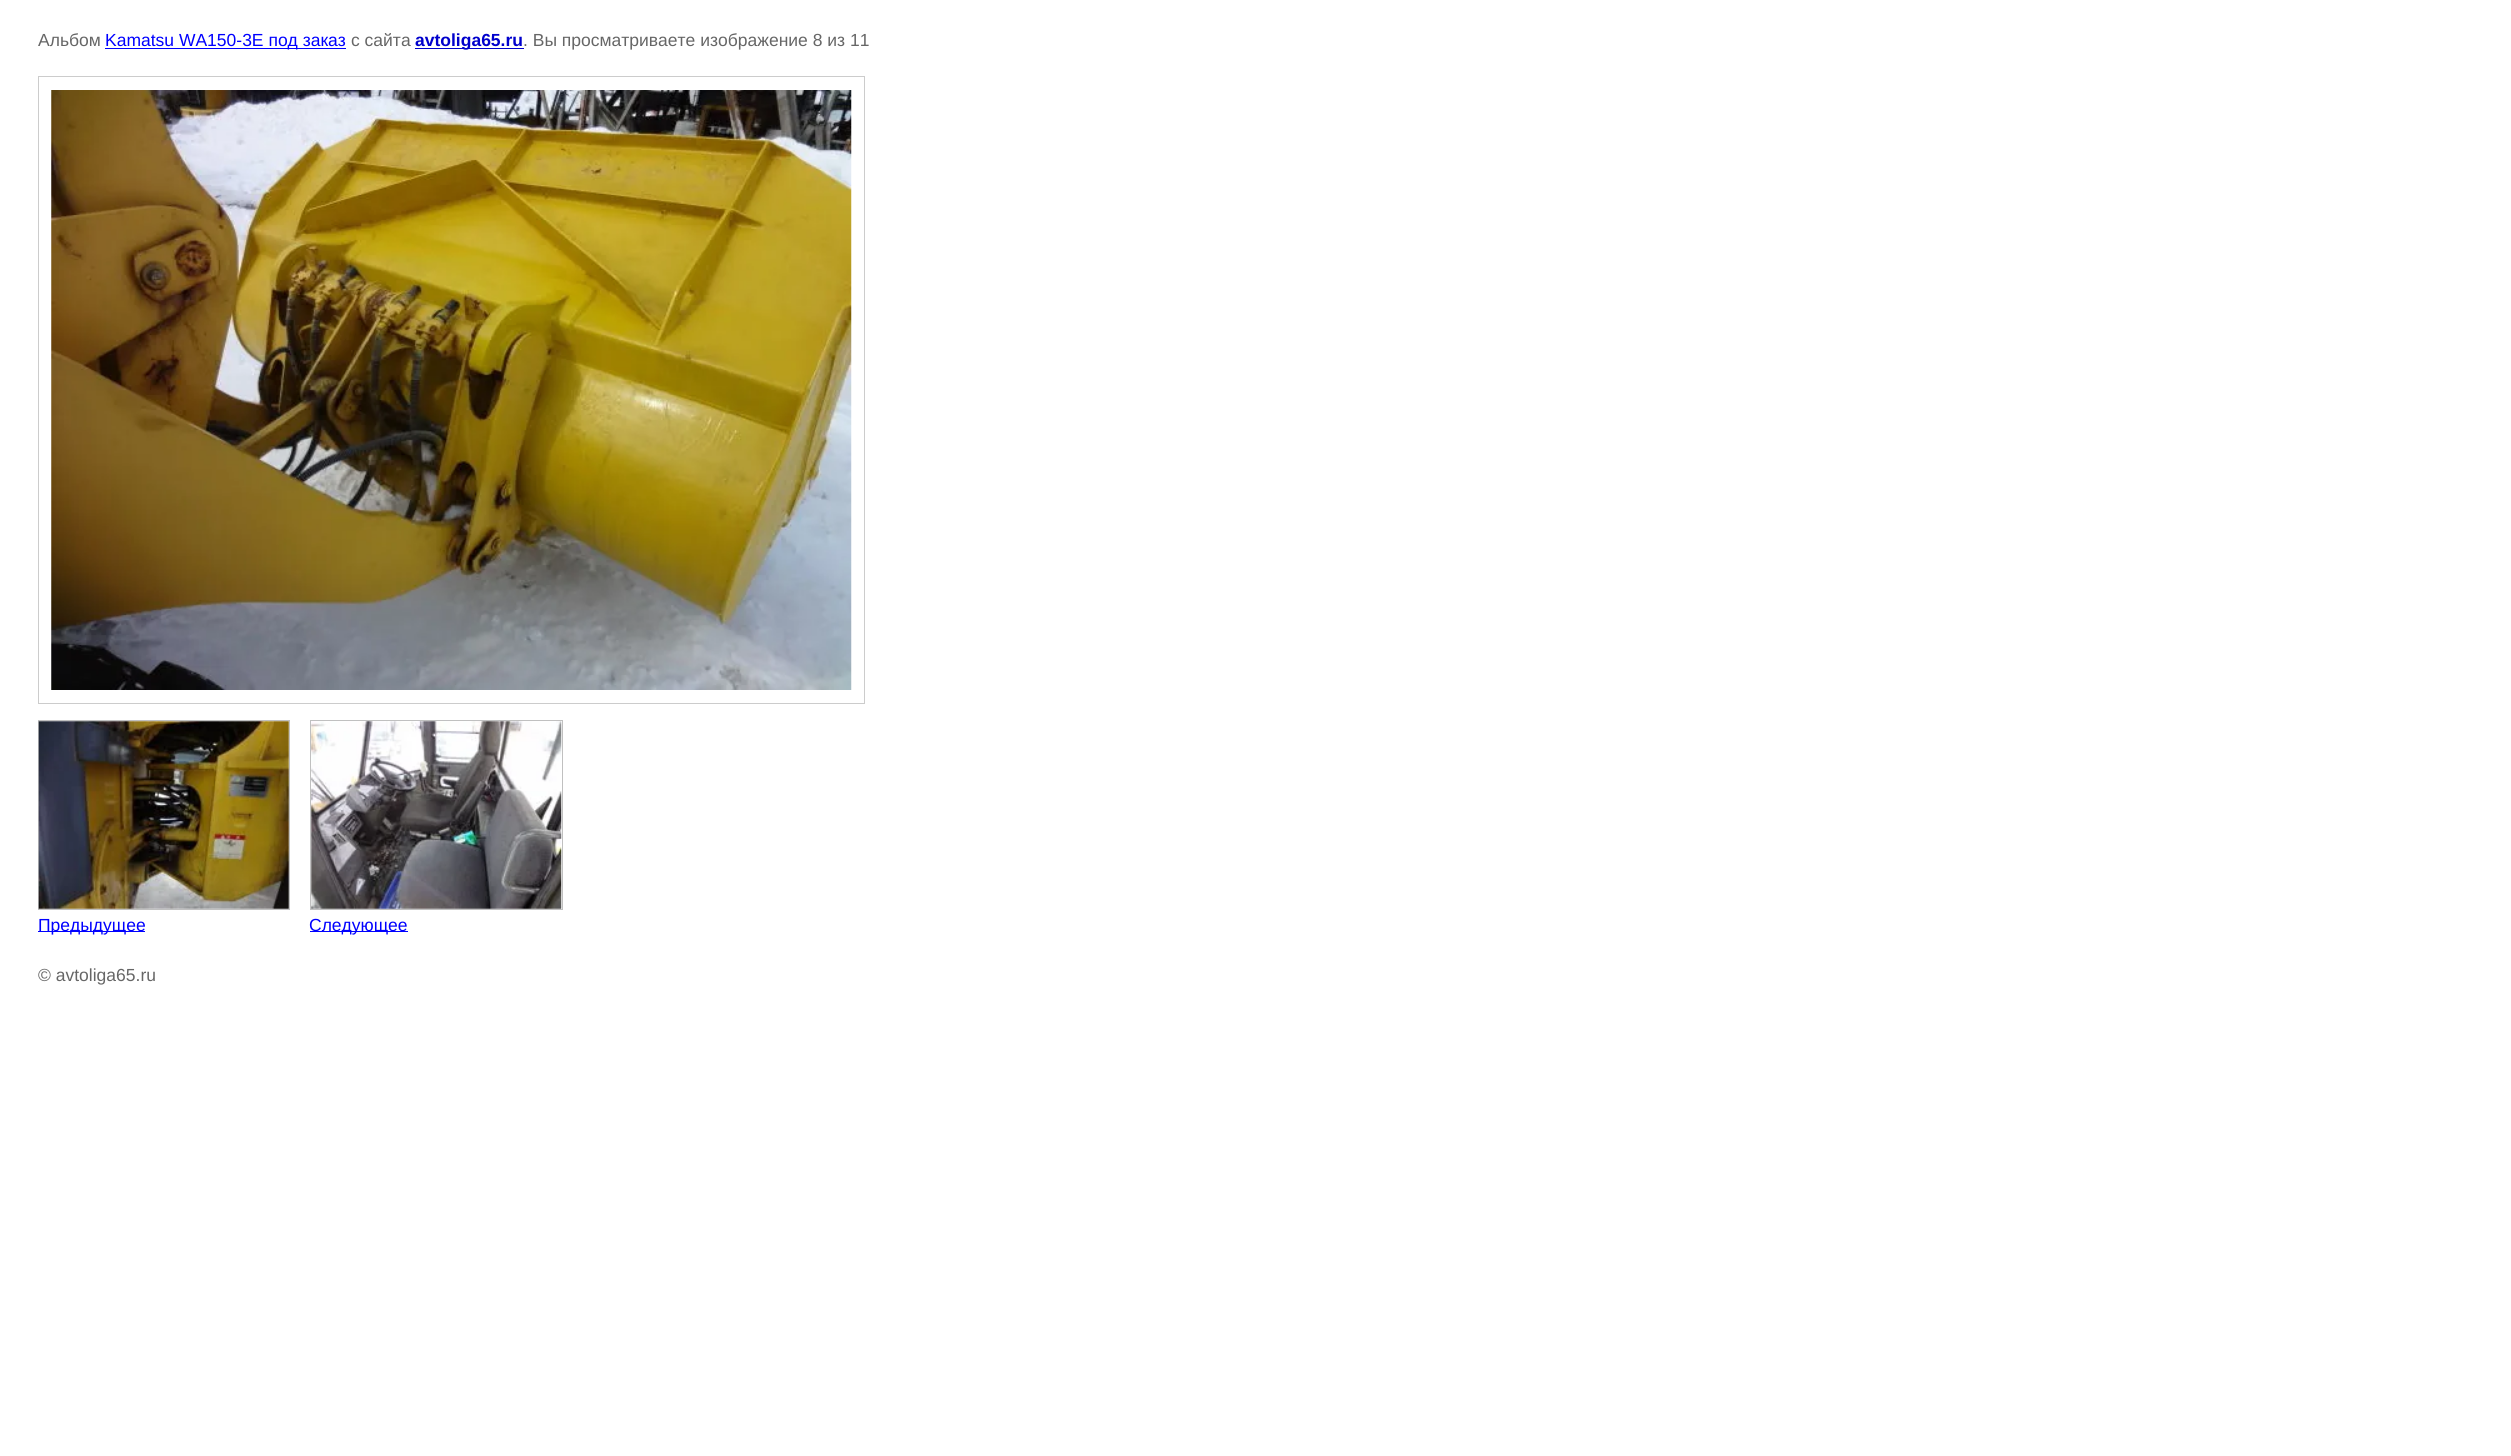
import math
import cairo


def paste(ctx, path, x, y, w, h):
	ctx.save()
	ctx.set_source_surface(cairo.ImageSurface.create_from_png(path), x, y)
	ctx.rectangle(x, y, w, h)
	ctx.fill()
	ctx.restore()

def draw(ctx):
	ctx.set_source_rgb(1, 1, 1)
	ctx.paint()
	ctx.select_font_face('Liberation Sans')
	ctx.set_font_size(17.5)
	ctx.set_source_rgb(0.4, 0.4, 0.4)
	ctx.move_to(38, 46)
	ctx.show_text('Альбом')
	ctx.set_source_rgb(0, 0, 1)
	ctx.rectangle(105, 48, 241, 1)
	ctx.fill()
	ctx.move_to(105, 46)
	ctx.show_text('Kamatsu WA150-3E под заказ')
	ctx.set_source_rgb(0.4, 0.4, 0.4)
	ctx.move_to(351, 46)
	ctx.show_text('с сайта')
	ctx.set_source_rgb(0, 0, 0.8)
	ctx.rectangle(415, 48, 109, 1)
	ctx.fill()
	ctx.select_font_face('Liberation Sans', cairo.FONT_SLANT_NORMAL, cairo.FONT_WEIGHT_BOLD)
	ctx.move_to(415, 46)
	ctx.show_text('avtoliga65.ru')
	ctx.select_font_face('Liberation Sans')
	ctx.set_source_rgb(0.4, 0.4, 0.4)
	ctx.move_to(523, 46)
	ctx.show_text('. Вы просматриваете изображение 8 из 11')
	ctx.rectangle(38.5, 76.5, 826, 627)
	ctx.set_source_rgb(0.8, 0.8, 0.8)
	ctx.set_line_width(1)
	ctx.stroke()
	paste(ctx, 'media/1.png', 51, 90, 801, 600)
	ctx.rectangle(38.5, 720.5, 251, 189)
	ctx.set_source_rgb(0.753, 0.753, 0.753)
	ctx.stroke()
	paste(ctx, 'media/2.png', 38, 721, 251, 188)
	ctx.set_source_rgb(0, 0, 1)
	ctx.rectangle(38, 931, 107, 1)
	ctx.fill()
	ctx.move_to(38, 931)
	ctx.show_text('Предыдущее')
	ctx.rectangle(310.5, 720.5, 252, 189)
	ctx.set_source_rgb(0.753, 0.753, 0.753)
	ctx.stroke()
	paste(ctx, 'media/3.png', 311, 721, 251, 188)
	ctx.set_source_rgb(0, 0, 1)
	ctx.rectangle(310, 931, 98, 1)
	ctx.fill()
	ctx.move_to(309, 931)
	ctx.show_text('Следующее')
	ctx.set_source_rgb(0.4, 0.4, 0.4)
	ctx.move_to(38, 981)
	ctx.show_text('© avtoliga65.ru')


surface = cairo.ImageSurface(cairo.FORMAT_RGB24, 2511, 1456)
ctx = cairo.Context(surface)
options = cairo.FontOptions()
options.set_hint_metrics(cairo.HINT_METRICS_OFF)
options.set_hint_style(cairo.HINT_STYLE_NONE)
ctx.set_font_options(options)
ctx.set_miter_limit(4)
draw(ctx)
surface.write_to_png('image.png')
